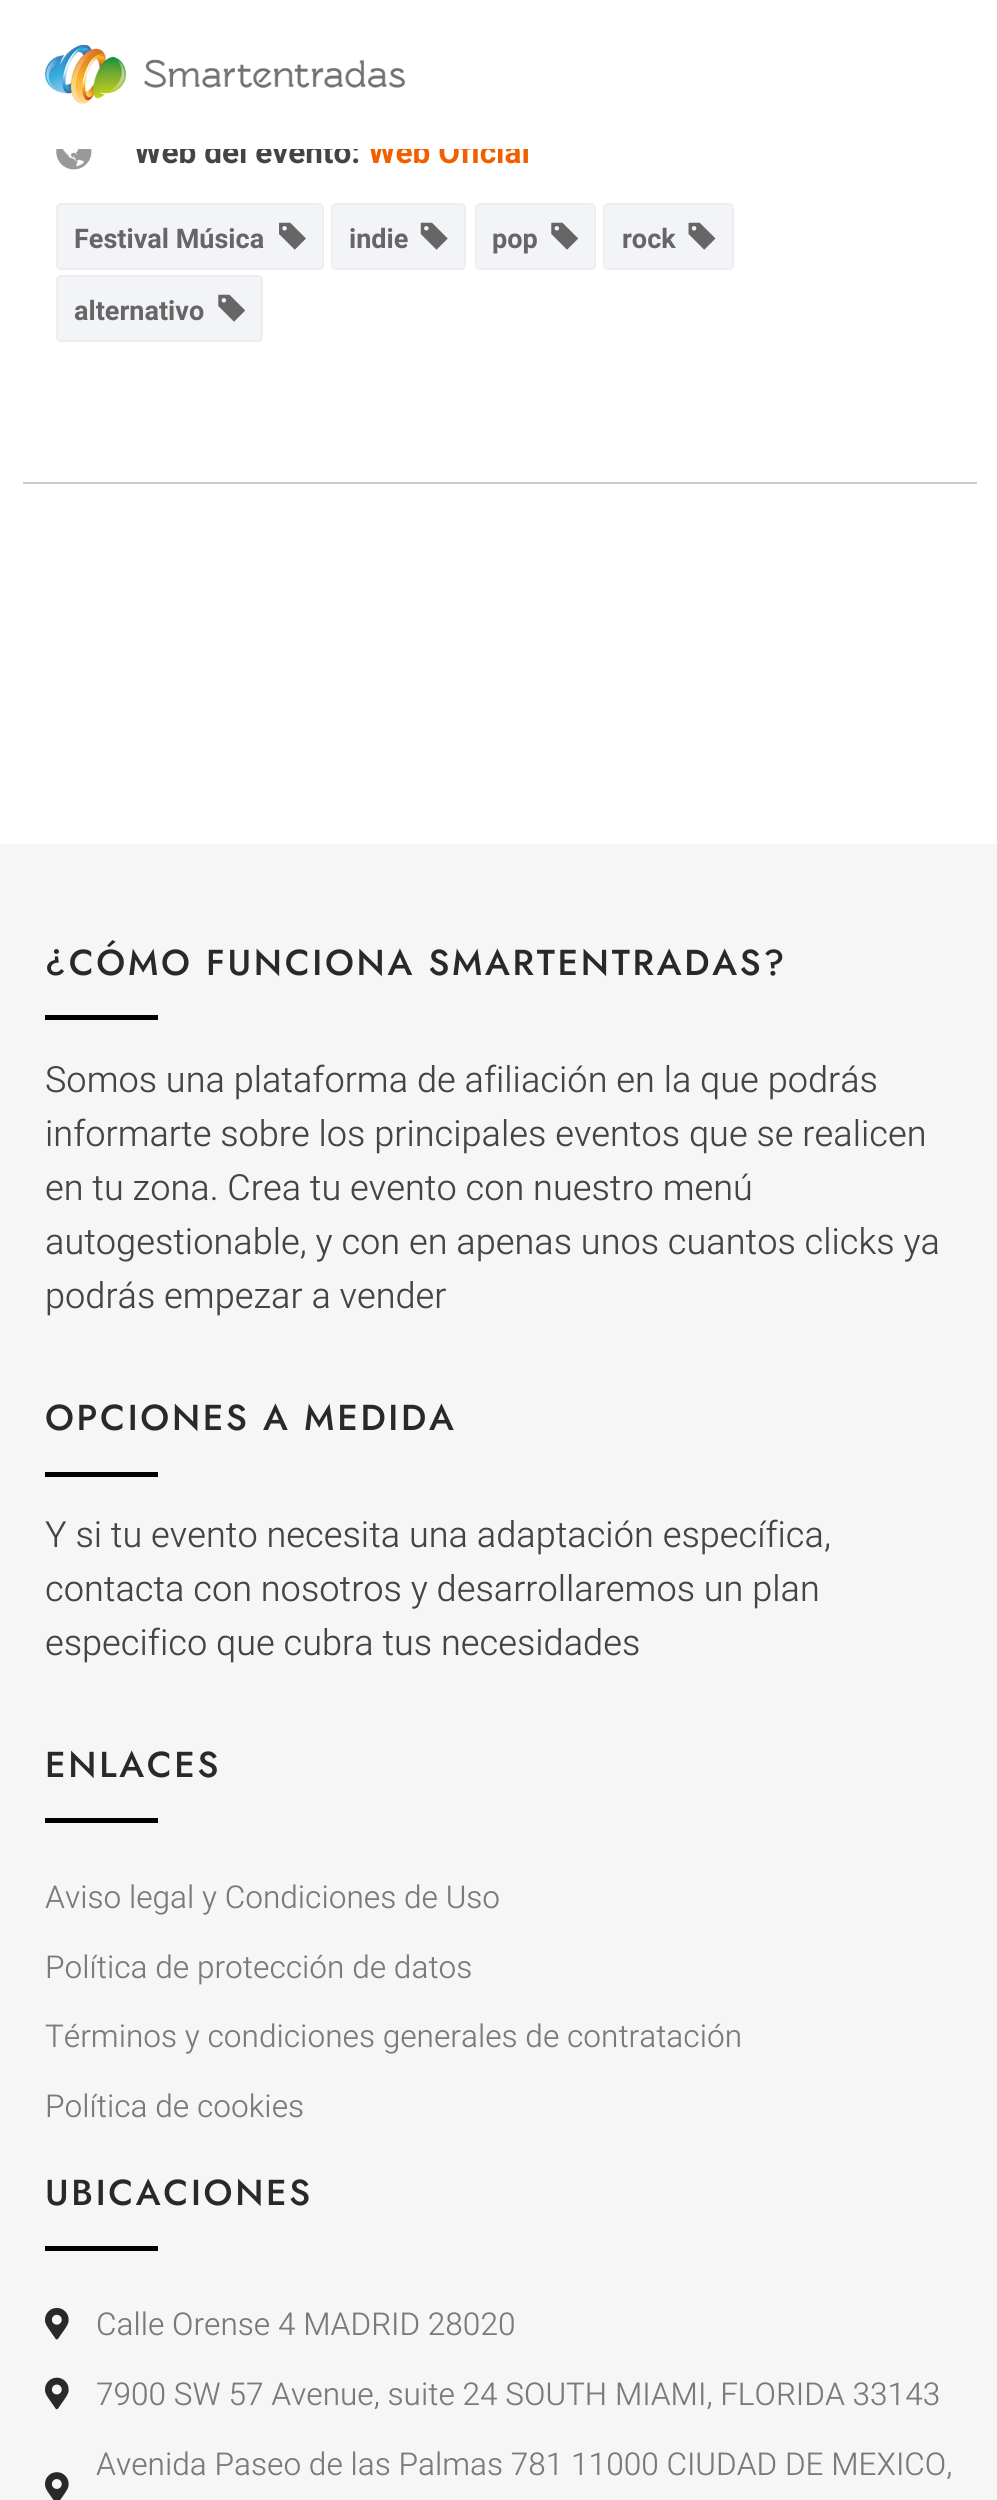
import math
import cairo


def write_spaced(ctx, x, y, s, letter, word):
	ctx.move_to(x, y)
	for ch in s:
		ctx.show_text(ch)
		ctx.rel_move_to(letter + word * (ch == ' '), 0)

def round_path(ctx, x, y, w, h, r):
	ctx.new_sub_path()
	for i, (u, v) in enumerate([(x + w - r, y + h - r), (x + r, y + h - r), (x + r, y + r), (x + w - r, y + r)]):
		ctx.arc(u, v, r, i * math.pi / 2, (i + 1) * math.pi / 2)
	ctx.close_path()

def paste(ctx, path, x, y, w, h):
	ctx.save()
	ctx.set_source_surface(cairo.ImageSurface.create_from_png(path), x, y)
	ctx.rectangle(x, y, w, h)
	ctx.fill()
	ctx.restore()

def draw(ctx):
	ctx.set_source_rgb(1, 1, 1)
	ctx.paint()
	ctx.select_font_face('Heebo', cairo.FONT_SLANT_NORMAL, cairo.FONT_WEIGHT_BOLD)
	ctx.set_font_size(31.5)
	ctx.set_source_rgb(0.267, 0.267, 0.267)
	ctx.move_to(134, 163)
	ctx.show_text('Web del evento:')
	ctx.set_source_rgb(0.941, 0.376, 0)
	ctx.move_to(368, 163)
	ctx.show_text('Web Oficial')
	ctx.set_source_rgb(1, 1, 1)
	ctx.rectangle(134, 139, 394, 10)
	ctx.fill()
	paste(ctx, 'media/1.png', 45, 45, 360, 59)
	ctx.set_source_rgb(0.8, 0.8, 0.8)
	ctx.rectangle(23, 482, 954, 2)
	ctx.fill()
	paste(ctx, 'media/2.png', 56, 149, 36, 21)
	ctx.set_source_rgb(0.953, 0.957, 0.969)
	round_path(ctx, 57, 204, 266, 65, 4)
	ctx.fill_preserve()
	ctx.set_source_rgb(0.933, 0.933, 0.933)
	ctx.stroke()
	ctx.set_font_size(27)
	ctx.set_source_rgb(0.4, 0.4, 0.4)
	ctx.move_to(74, 248)
	ctx.show_text('Festival Música')
	paste(ctx, 'media/3.png', 279, 222, 27, 28)
	ctx.set_source_rgb(0.953, 0.957, 0.969)
	round_path(ctx, 332, 204, 133, 65, 4)
	ctx.fill_preserve()
	ctx.set_source_rgb(0.933, 0.933, 0.933)
	ctx.stroke()
	ctx.set_source_rgb(0.4, 0.4, 0.4)
	ctx.move_to(349, 248)
	ctx.show_text('indie')
	paste(ctx, 'media/4.png', 420, 222, 28, 28)
	ctx.set_source_rgb(0.953, 0.957, 0.969)
	round_path(ctx, 476, 204, 119, 65, 4)
	ctx.fill_preserve()
	ctx.set_source_rgb(0.933, 0.933, 0.933)
	ctx.stroke()
	ctx.set_source_rgb(0.4, 0.4, 0.4)
	ctx.move_to(492, 248)
	ctx.show_text('pop')
	paste(ctx, 'media/5.png', 551, 222, 28, 28)
	ctx.set_source_rgb(0.953, 0.957, 0.969)
	round_path(ctx, 604, 204, 129, 65, 4)
	ctx.fill_preserve()
	ctx.set_source_rgb(0.933, 0.933, 0.933)
	ctx.stroke()
	ctx.set_source_rgb(0.4, 0.4, 0.4)
	ctx.move_to(622, 248)
	ctx.show_text('rock')
	paste(ctx, 'media/6.png', 688, 222, 28, 28)
	ctx.set_source_rgb(0.953, 0.957, 0.969)
	round_path(ctx, 57, 276, 205, 65, 4)
	ctx.fill_preserve()
	ctx.set_source_rgb(0.933, 0.933, 0.933)
	ctx.stroke()
	ctx.set_source_rgb(0.4, 0.4, 0.4)
	ctx.move_to(74, 320)
	ctx.show_text('alternativo')
	paste(ctx, 'media/5.png', 218, 294, 28, 28)
	ctx.set_source_rgb(0.961, 0.961, 0.961)
	ctx.rectangle(0, 844, 997, 1656)
	ctx.fill()
	ctx.select_font_face('Jost Medium')
	ctx.set_font_size(36)
	ctx.set_source_rgb(0.161, 0.161, 0.161)
	write_spaced(ctx, 45, 975, '¿CÓMO FUNCIONA SMARTENTRADAS?', 2.7, 0)
	ctx.set_source_rgb(0, 0, 0)
	ctx.rectangle(45, 1015, 113, 5)
	ctx.fill()
	ctx.select_font_face('Heebo Light')
	ctx.set_source_rgb(0.267, 0.267, 0.267)
	for x, y, s in [
		(45, 1092, 'Somos una plataforma de afiliación en la que podrás'),
		(45, 1146, 'informarte sobre los principales eventos que se realicen'),
		(45, 1200, 'en tu zona. Crea tu evento con nuestro menú'),
		(45, 1254, 'autogestionable, y con en apenas unos cuantos clicks ya'),
		(45, 1308, 'podrás empezar a vender'),
	]:
		ctx.move_to(x, y)
		ctx.show_text(s)
	ctx.select_font_face('Jost Medium')
	ctx.set_source_rgb(0.161, 0.161, 0.161)
	write_spaced(ctx, 45, 1430, 'OPCIONES A MEDIDA', 2.7, 0)
	ctx.set_source_rgb(0, 0, 0)
	ctx.rectangle(45, 1472, 113, 5)
	ctx.fill()
	ctx.select_font_face('Heebo Light')
	ctx.set_source_rgb(0.267, 0.267, 0.267)
	for x, y, s in [
		(45, 1547, 'Y si tu evento necesita una adaptación específica,'),
		(45, 1601, 'contacta con nosotros y desarrollaremos un plan'),
		(45, 1655, 'especifico que cubra tus necesidades'),
	]:
		ctx.move_to(x, y)
		ctx.show_text(s)
	ctx.select_font_face('Jost Medium')
	ctx.set_source_rgb(0.161, 0.161, 0.161)
	write_spaced(ctx, 45, 1777, 'ENLACES', 2.7, 0)
	ctx.set_source_rgb(0, 0, 0)
	ctx.rectangle(45, 1818, 113, 5)
	ctx.fill()
	ctx.select_font_face('Heebo Light')
	ctx.set_font_size(31.5)
	ctx.set_source_rgb(0.478, 0.478, 0.478)
	for x, y, s in [
		(45, 1908, 'Aviso legal y Condiciones de Uso'),
		(45, 1978, 'Política de protección de datos'),
		(45, 2047, 'Términos y condiciones generales de contratación'),
		(45, 2117, 'Política de cookies'),
	]:
		ctx.move_to(x, y)
		ctx.show_text(s)
	ctx.select_font_face('Jost Medium')
	ctx.set_font_size(36)
	ctx.set_source_rgb(0.161, 0.161, 0.161)
	write_spaced(ctx, 45, 2205, 'UBICACIONES', 2.7, 0)
	ctx.set_source_rgb(0, 0, 0)
	ctx.rectangle(45, 2246, 113, 5)
	ctx.fill()
	paste(ctx, 'media/7.png', 45, 2307, 24, 33)
	ctx.select_font_face('Heebo Light')
	ctx.set_font_size(31.5)
	ctx.set_source_rgb(0.478, 0.478, 0.478)
	ctx.move_to(96, 2335)
	ctx.show_text('Calle Orense 4 MADRID 28020')
	paste(ctx, 'media/8.png', 45, 2377, 24, 33)
	ctx.move_to(96, 2405)
	ctx.show_text('7900 SW 57 Avenue, suite 24 SOUTH MIAMI, FLORIDA 33143')
	ctx.move_to(96, 2475)
	ctx.show_text('Avenida Paseo de las Palmas 781 11000 CIUDAD DE MEXICO,')
	paste(ctx, 'media/9.png', 45, 2472, 24, 28)


surface = cairo.ImageSurface(cairo.FORMAT_RGB24, 997, 2500)
ctx = cairo.Context(surface)
options = cairo.FontOptions()
options.set_hint_metrics(cairo.HINT_METRICS_OFF)
options.set_hint_style(cairo.HINT_STYLE_NONE)
ctx.set_font_options(options)
ctx.set_miter_limit(4)
draw(ctx)
surface.write_to_png('image.png')
